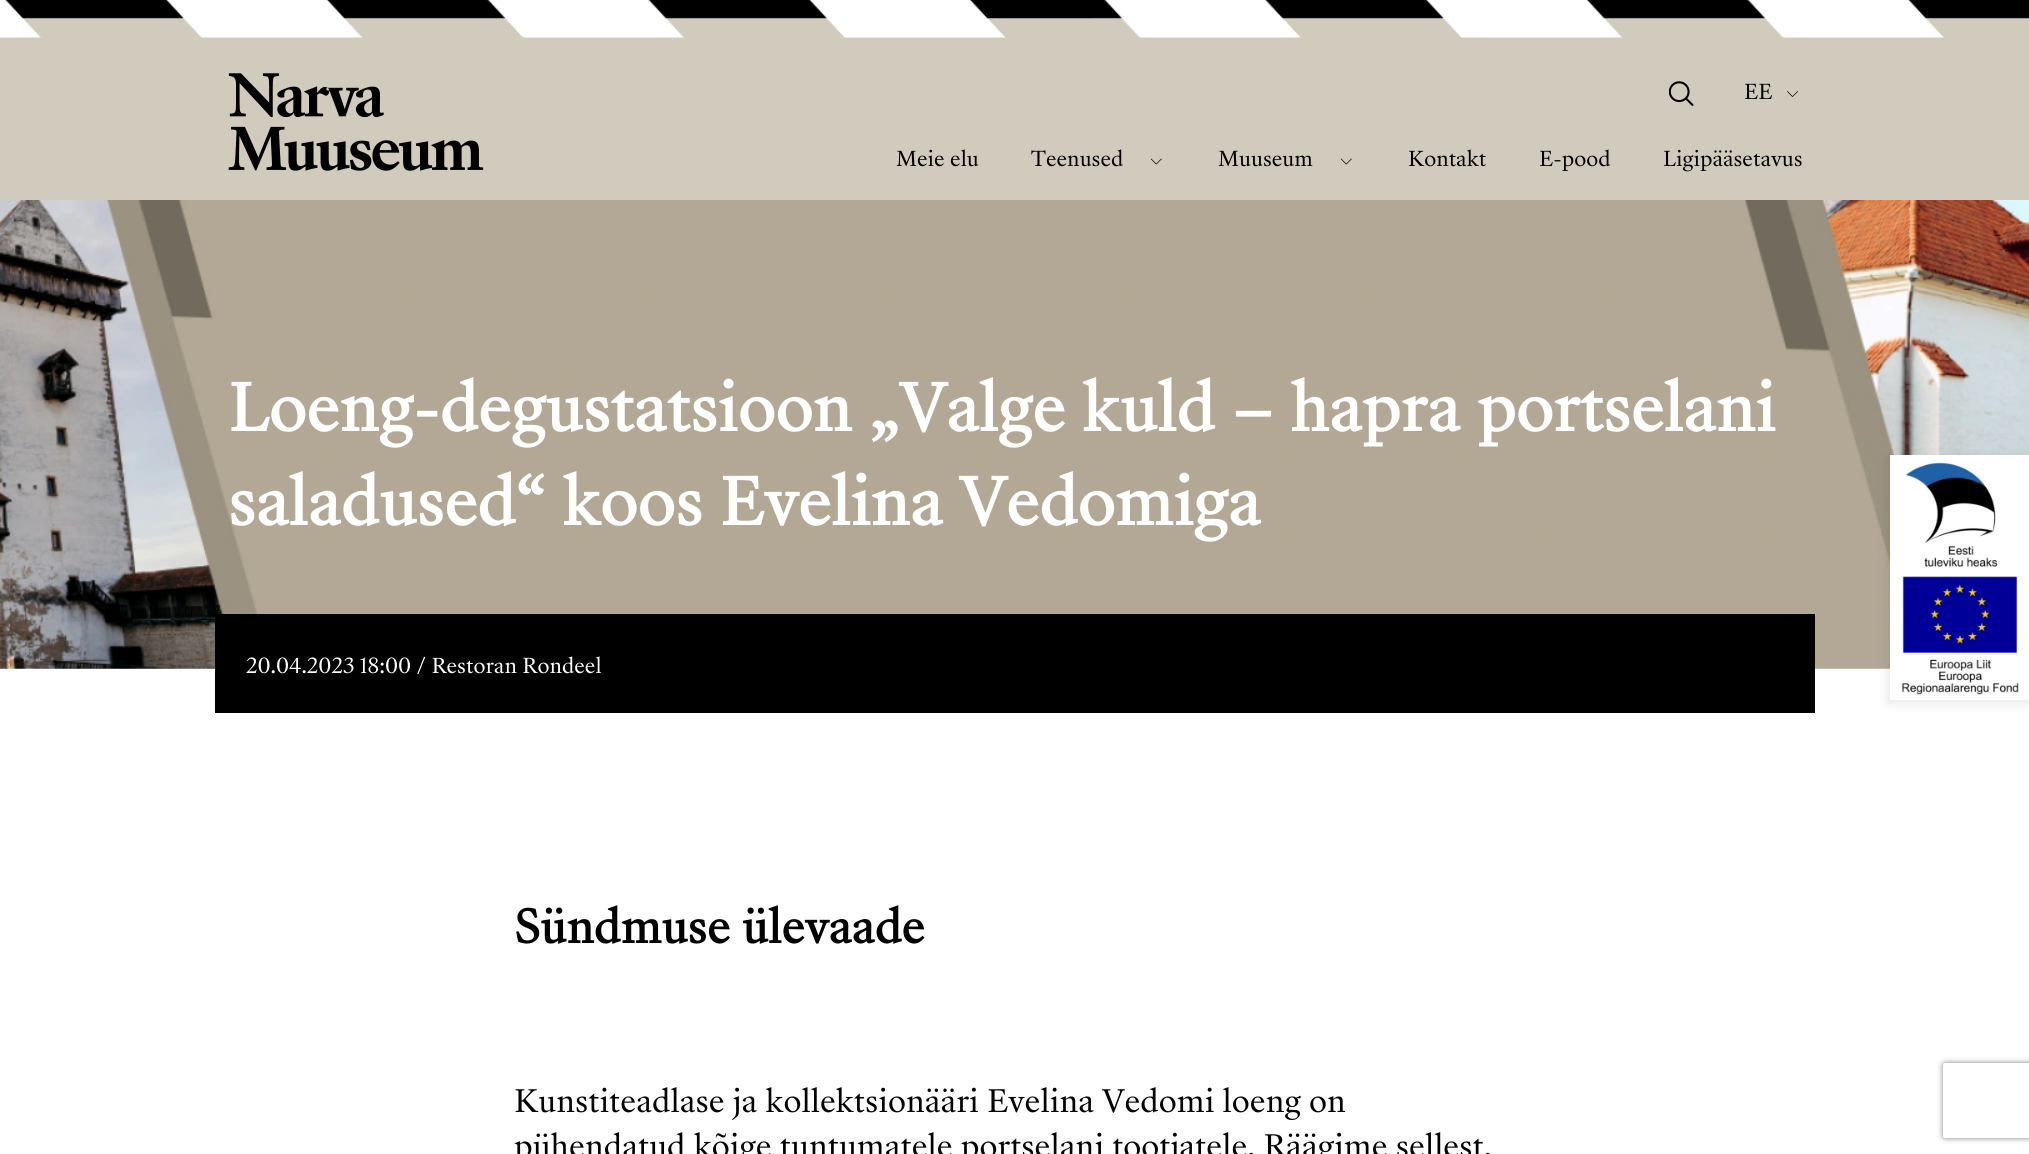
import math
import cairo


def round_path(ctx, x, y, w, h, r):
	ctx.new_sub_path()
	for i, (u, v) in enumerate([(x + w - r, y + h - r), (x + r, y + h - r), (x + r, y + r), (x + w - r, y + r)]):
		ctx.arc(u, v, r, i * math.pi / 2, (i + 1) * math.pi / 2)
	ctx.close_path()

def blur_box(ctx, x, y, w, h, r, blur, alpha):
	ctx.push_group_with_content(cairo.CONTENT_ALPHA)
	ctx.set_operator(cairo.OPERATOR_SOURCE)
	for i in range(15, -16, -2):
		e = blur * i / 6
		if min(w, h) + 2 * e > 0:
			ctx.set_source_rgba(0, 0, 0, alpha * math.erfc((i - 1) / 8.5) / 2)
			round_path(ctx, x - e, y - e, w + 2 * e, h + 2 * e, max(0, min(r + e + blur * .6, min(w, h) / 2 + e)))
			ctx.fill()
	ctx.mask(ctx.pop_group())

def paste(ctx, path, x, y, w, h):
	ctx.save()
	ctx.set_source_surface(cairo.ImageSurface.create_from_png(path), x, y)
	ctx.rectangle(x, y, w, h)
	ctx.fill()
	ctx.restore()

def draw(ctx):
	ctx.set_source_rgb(1, 1, 1)
	ctx.paint()
	ctx.set_source_rgb(0.816, 0.796, 0.737)
	ctx.rectangle(0, 0, 2029, 200)
	ctx.fill()
	paste(ctx, 'media/1.png', 0, 0, 2029, 38)
	paste(ctx, 'media/2.png', 228, 73, 256, 98)
	paste(ctx, 'media/3.png', 1669, 81, 25, 25)
	ctx.select_font_face('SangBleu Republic')
	ctx.set_font_size(20)
	ctx.set_source_rgb(0, 0, 0)
	ctx.move_to(1744, 99)
	ctx.show_text('EE')
	paste(ctx, 'media/4.png', 1787, 91, 11, 6)
	ctx.move_to(896, 166)
	ctx.show_text('Meie elu')
	ctx.move_to(1031, 166)
	ctx.show_text('Teenused')
	paste(ctx, 'media/5.png', 1150, 158, 12, 7)
	ctx.move_to(1218, 166)
	ctx.show_text('Muuseum')
	paste(ctx, 'media/5.png', 1340, 158, 12, 7)
	for x, y, s in [
		(1408, 166, 'Kontakt'),
		(1539, 166, 'E-pood'),
		(1663, 166, 'Ligipääsetavus'),
	]:
		ctx.move_to(x, y)
		ctx.show_text(s)
	paste(ctx, 'media/6.png', 0, 200, 2029, 469)
	ctx.select_font_face('SangBleu Republic', cairo.FONT_SLANT_NORMAL, cairo.FONT_WEIGHT_BOLD)
	ctx.set_font_size(62.5)
	ctx.set_source_rgb(1, 1, 1)
	ctx.move_to(228, 431)
	ctx.show_text('Loeng-degustatsioon „Valge kuld – hapra portselani')
	ctx.move_to(228, 525)
	ctx.show_text('saladused“ koos Evelina Vedomiga')
	ctx.save()
	ctx.set_fill_rule(cairo.FILL_RULE_EVEN_ODD)
	ctx.new_path()
	ctx.move_to(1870, 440)
	ctx.line_to(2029, 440)
	ctx.line_to(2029, 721)
	ctx.line_to(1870, 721)
	ctx.close_path()
	ctx.move_to(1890, 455)
	ctx.line_to(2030, 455)
	ctx.line_to(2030, 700)
	ctx.line_to(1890, 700)
	ctx.close_path()
	ctx.clip()
	ctx.set_source_rgb(0, 0, 0)
	blur_box(ctx, 1888, 458, 140, 245, 0, 5.5, 0.1)
	ctx.restore()
	paste(ctx, 'media/7.png', 1890, 455, 139, 240)
	ctx.set_source_rgb(0, 0, 0)
	ctx.rectangle(215, 614, 1600, 99)
	ctx.fill()
	ctx.select_font_face('SangBleu Republic')
	ctx.set_font_size(20)
	ctx.set_source_rgb(1, 1, 1)
	ctx.move_to(246, 673)
	ctx.show_text('20.04.2023 18:00 / Restoran Rondeel')
	ctx.select_font_face('SangBleu Republic', cairo.FONT_SLANT_NORMAL, cairo.FONT_WEIGHT_BOLD)
	ctx.set_font_size(43.75)
	ctx.set_source_rgb(0, 0, 0)
	ctx.move_to(514, 943)
	ctx.show_text('Sündmuse ülevaade')
	ctx.select_font_face('SangBleu Republic')
	ctx.set_font_size(30)
	ctx.move_to(514, 1112)
	ctx.show_text('Kunstiteadlase ja kollektsionääri Evelina Vedomi loeng on')
	ctx.move_to(514, 1157)
	ctx.show_text('pühendatud kõige tuntumatele portselani tootjatele. Räägime sellest,')
	ctx.save()
	ctx.set_fill_rule(cairo.FILL_RULE_EVEN_ODD)
	ctx.new_path()
	ctx.move_to(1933, 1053)
	ctx.line_to(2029, 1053)
	ctx.line_to(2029, 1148)
	ctx.line_to(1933, 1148)
	ctx.close_path()
	ctx.move_to(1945.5, 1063)
	ctx.line_to(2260.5, 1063)
	ctx.curve_to(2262, 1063, 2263, 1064, 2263, 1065.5)
	ctx.line_to(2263, 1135.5)
	ctx.curve_to(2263, 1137, 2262, 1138, 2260.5, 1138)
	ctx.line_to(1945.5, 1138)
	ctx.curve_to(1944, 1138, 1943, 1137, 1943, 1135.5)
	ctx.line_to(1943, 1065.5)
	ctx.curve_to(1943, 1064, 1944, 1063, 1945.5, 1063)
	ctx.close_path()
	ctx.clip()
	ctx.set_source_rgb(0.502, 0.502, 0.502)
	blur_box(ctx, 1943, 1063, 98, 75, 2.5, 3, 1)
	ctx.restore()


surface = cairo.ImageSurface(cairo.FORMAT_RGB24, 2029, 1154)
ctx = cairo.Context(surface)
options = cairo.FontOptions()
options.set_hint_metrics(cairo.HINT_METRICS_OFF)
options.set_hint_style(cairo.HINT_STYLE_NONE)
ctx.set_font_options(options)
ctx.set_miter_limit(4)
draw(ctx)
surface.write_to_png('image.png')
